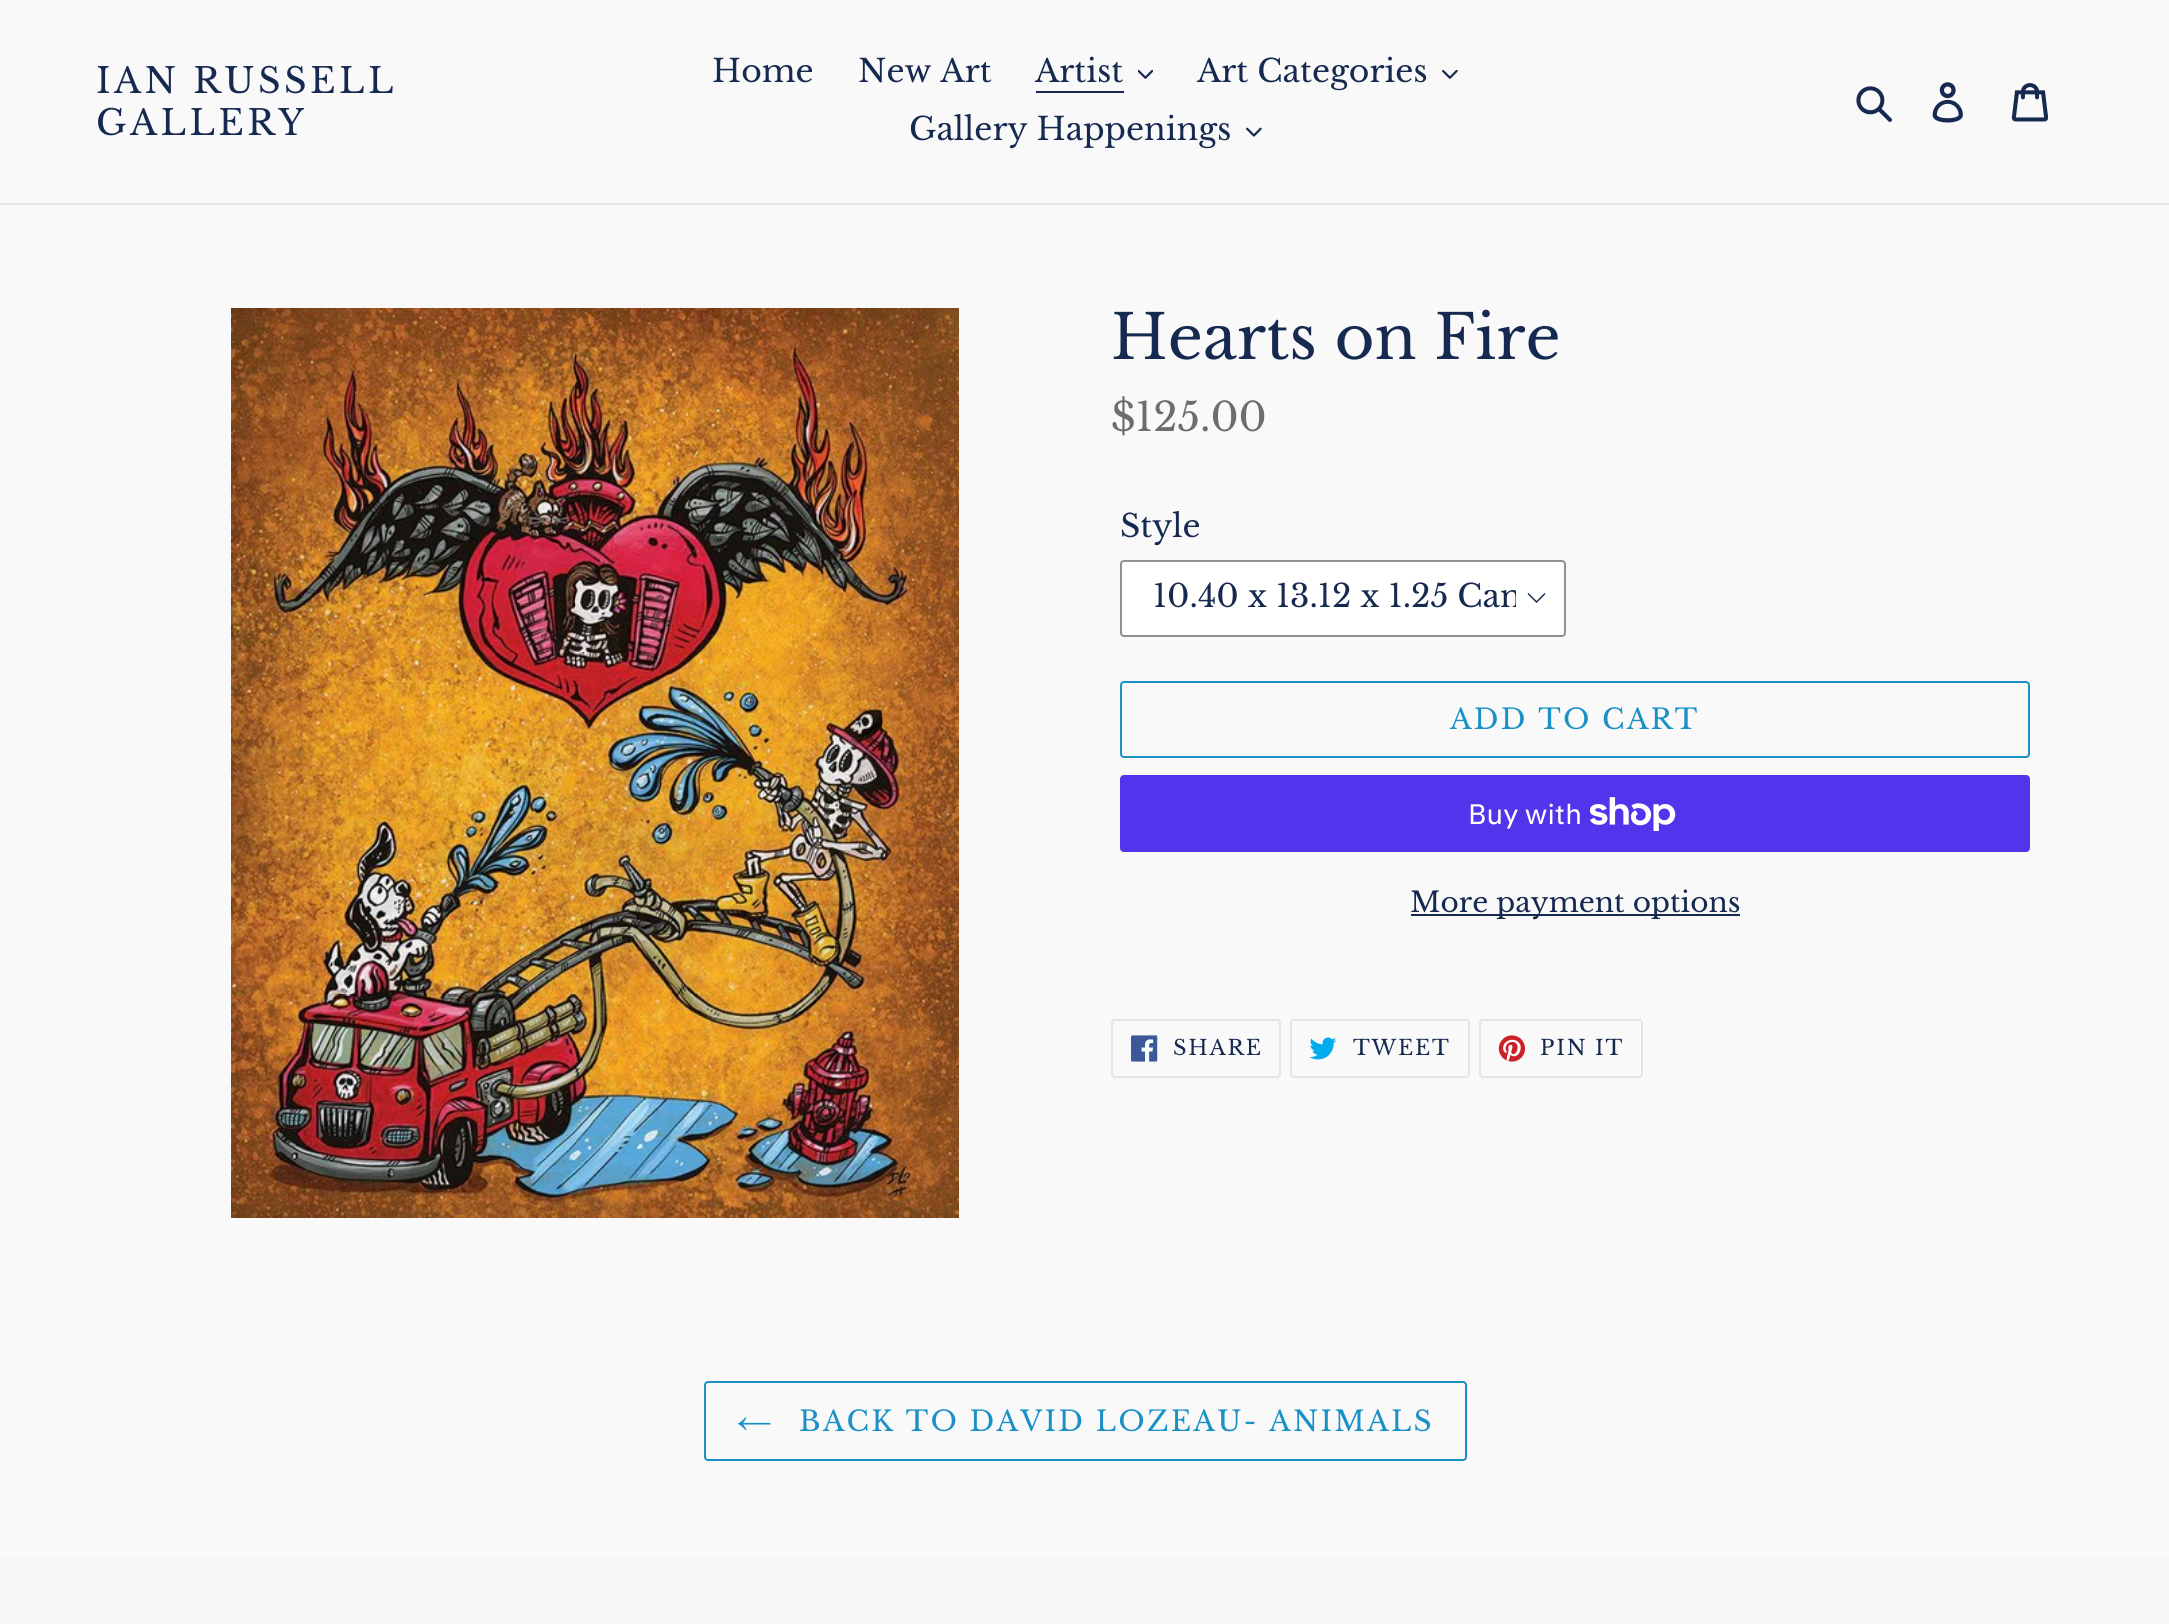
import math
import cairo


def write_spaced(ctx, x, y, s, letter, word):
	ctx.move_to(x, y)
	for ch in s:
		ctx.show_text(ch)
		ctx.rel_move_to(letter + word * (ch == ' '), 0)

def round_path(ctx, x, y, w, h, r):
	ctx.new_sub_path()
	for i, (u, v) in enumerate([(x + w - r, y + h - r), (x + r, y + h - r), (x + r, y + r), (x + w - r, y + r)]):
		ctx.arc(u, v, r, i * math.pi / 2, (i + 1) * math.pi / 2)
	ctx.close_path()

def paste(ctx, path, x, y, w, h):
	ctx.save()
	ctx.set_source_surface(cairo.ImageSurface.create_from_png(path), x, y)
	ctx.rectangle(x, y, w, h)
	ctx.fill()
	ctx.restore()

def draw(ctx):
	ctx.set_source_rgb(0.973, 0.973, 0.973)
	ctx.paint()
	ctx.set_source_rgb(0.894, 0.894, 0.894)
	ctx.rectangle(0, 203, 2169, 2)
	ctx.fill()
	ctx.select_font_face('Libre Baskerville')
	ctx.set_font_size(35)
	ctx.set_source_rgb(0.086, 0.161, 0.314)
	write_spaced(ctx, 96, 93, 'IAN RUSSELL', 3.5, 0)
	write_spaced(ctx, 96, 135, 'GALLERY', 3.5, 0)
	ctx.set_font_size(31.5)
	for x, y, s in [
		(712, 82, 'Home'),
		(858, 82, 'New Art'),
		(1035, 82, 'Artist'),
	]:
		ctx.move_to(x, y)
		ctx.show_text(s)
	ctx.rectangle(1036, 91, 88, 2)
	ctx.fill()
	paste(ctx, 'media/1.png', 1138, 69, 15, 10)
	ctx.move_to(1197, 82)
	ctx.show_text('Art Categories')
	paste(ctx, 'media/2.png', 1442, 69, 16, 10)
	ctx.move_to(909, 140)
	ctx.show_text('Gallery Happenings')
	paste(ctx, 'media/3.png', 1246, 127, 16, 10)
	paste(ctx, 'media/4.png', 1856, 86, 36, 36)
	paste(ctx, 'media/5.png', 1932, 82, 31, 41)
	paste(ctx, 'media/6.png', 2011, 83, 38, 39)
	paste(ctx, 'media/7.png', 231, 308, 728, 910)
	ctx.set_font_size(61.25)
	ctx.move_to(1111, 359)
	ctx.show_text('Hearts on Fire')
	ctx.set_font_size(39.5)
	ctx.set_source_rgb(0.427, 0.427, 0.427)
	ctx.move_to(1111, 431)
	ctx.show_text('$125.00')
	ctx.set_font_size(31.5)
	ctx.set_source_rgb(0.086, 0.161, 0.314)
	ctx.move_to(1120, 537)
	ctx.show_text('Style')
	ctx.set_source_rgb(1, 1, 1)
	round_path(ctx, 1120, 560, 446, 77, 4)
	ctx.fill()
	ctx.set_source_rgb(0.086, 0.161, 0.314)
	ctx.new_path()
	ctx.move_to(1536.5, 603)
	ctx.line_to(1527.5, 594)
	ctx.line_to(1528.5, 593)
	ctx.line_to(1536.5, 601)
	ctx.line_to(1544.5, 593)
	ctx.line_to(1545.5, 594)
	ctx.close_path()
	ctx.fill()
	round_path(ctx, 1121, 561, 444, 75, 3)
	ctx.set_source_rgb(0.565, 0.565, 0.565)
	ctx.stroke()
	ctx.save()
	ctx.rectangle(1153, 579, 363, 39)
	ctx.clip()
	ctx.set_source_rgb(0.086, 0.161, 0.314)
	ctx.move_to(1153, 607)
	ctx.show_text('10.40 x 13.12 x 1.25 Can')
	ctx.restore()
	round_path(ctx, 1121, 682, 908, 75, 3)
	ctx.set_source_rgb(0.098, 0.565, 0.776)
	ctx.stroke()
	ctx.set_font_size(28)
	write_spaced(ctx, 1450, 729, 'ADD TO CART', 2.25, 0)
	ctx.set_source_rgb(0.329, 0.2, 0.922)
	round_path(ctx, 1120, 775, 910, 77, 4)
	ctx.fill()
	ctx.select_font_face('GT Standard')
	ctx.set_source_rgb(1, 1, 1)
	ctx.move_to(1468, 824)
	ctx.show_text('Buy with')
	paste(ctx, 'media/8.png', 1590, 797, 86, 34)
	ctx.set_source_rgb(0.086, 0.161, 0.314)
	ctx.rectangle(1411, 914, 329, 2)
	ctx.fill()
	ctx.select_font_face('Libre Baskerville')
	ctx.move_to(1410, 912)
	ctx.show_text('More payment options')
	round_path(ctx, 1112, 1020, 168, 57, 3)
	ctx.set_source_rgb(0.894, 0.894, 0.894)
	ctx.stroke()
	paste(ctx, 'media/9.png', 1131, 1035, 27, 27)
	ctx.set_font_size(21)
	ctx.set_source_rgb(0.086, 0.161, 0.314)
	write_spaced(ctx, 1173, 1055, 'SHARE', 1.75, 0)
	round_path(ctx, 1291, 1020, 178, 57, 3)
	ctx.set_source_rgb(0.894, 0.894, 0.894)
	ctx.stroke()
	paste(ctx, 'media/10.png', 1309, 1037, 28, 23)
	ctx.set_source_rgb(0.086, 0.161, 0.314)
	write_spaced(ctx, 1353, 1055, 'TWEET', 1.75, 0)
	round_path(ctx, 1480, 1020, 162, 57, 3)
	ctx.set_source_rgb(0.894, 0.894, 0.894)
	ctx.stroke()
	paste(ctx, 'media/11.png', 1498, 1035, 28, 27)
	ctx.set_source_rgb(0.086, 0.161, 0.314)
	write_spaced(ctx, 1540, 1055, 'PIN IT', 1.75, 0)
	round_path(ctx, 705, 1382, 761, 78, 3)
	ctx.set_source_rgb(0.098, 0.565, 0.776)
	ctx.stroke()
	paste(ctx, 'media/12.png', 738, 1417, 33, 13)
	ctx.set_font_size(28)
	write_spaced(ctx, 799, 1431, 'BACK TO DAVID LOZEAU- ANIMALS', 2.25, 0)
	ctx.set_source_rgb(0.961, 0.961, 0.961)
	ctx.rectangle(0, 1558, 2169, 66)
	ctx.fill()


surface = cairo.ImageSurface(cairo.FORMAT_RGB24, 2169, 1624)
ctx = cairo.Context(surface)
options = cairo.FontOptions()
options.set_hint_metrics(cairo.HINT_METRICS_OFF)
options.set_hint_style(cairo.HINT_STYLE_NONE)
ctx.set_font_options(options)
ctx.set_miter_limit(4)
draw(ctx)
surface.write_to_png('image.png')
